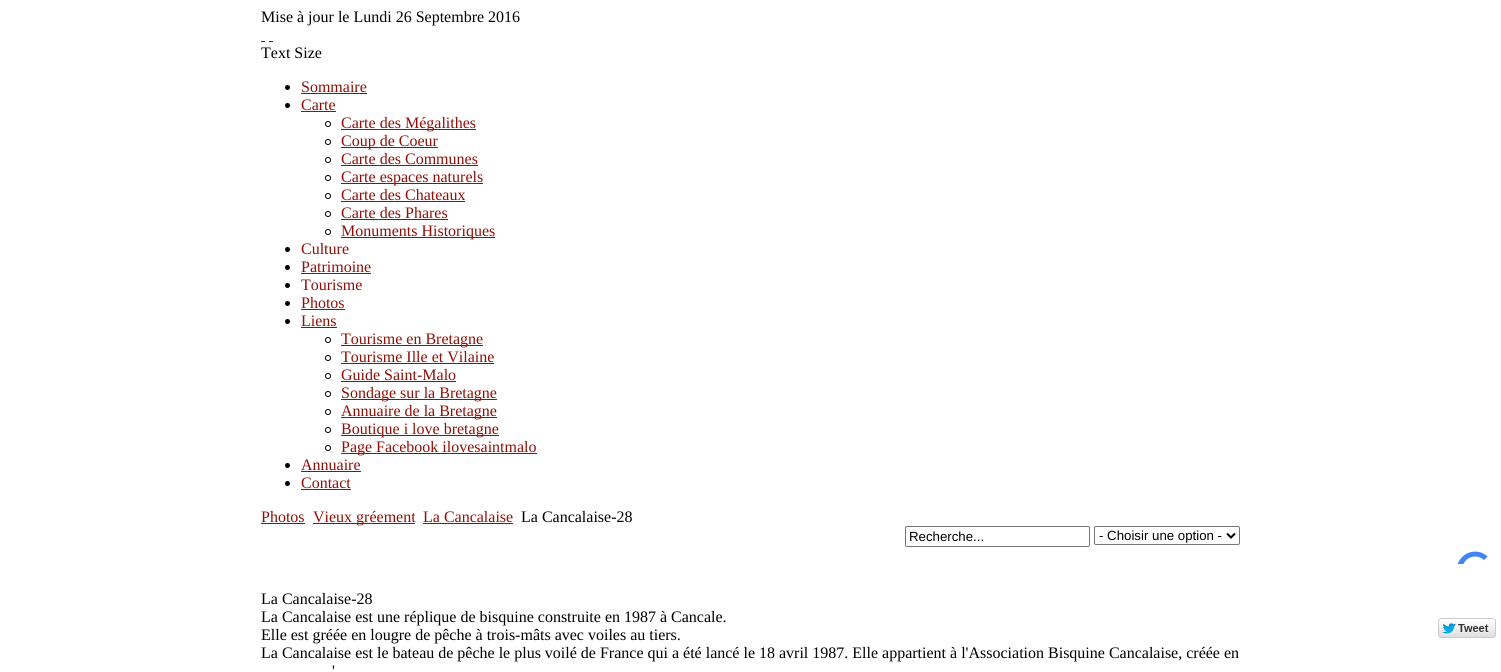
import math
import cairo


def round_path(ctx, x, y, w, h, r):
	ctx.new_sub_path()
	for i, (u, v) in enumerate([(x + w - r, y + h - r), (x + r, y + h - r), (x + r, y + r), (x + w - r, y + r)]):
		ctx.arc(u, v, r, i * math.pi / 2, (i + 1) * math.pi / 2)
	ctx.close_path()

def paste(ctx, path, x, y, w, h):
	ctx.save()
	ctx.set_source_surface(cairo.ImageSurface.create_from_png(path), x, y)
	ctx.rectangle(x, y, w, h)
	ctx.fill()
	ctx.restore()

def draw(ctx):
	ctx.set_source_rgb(1, 1, 1)
	ctx.paint()
	ctx.select_font_face('Liberation Serif')
	ctx.set_font_size(16)
	ctx.set_source_rgb(0, 0, 0)
	ctx.move_to(261, 22)
	ctx.show_text('Mise à jour le Lundi 26 Septembre 2016')
	ctx.set_source_rgb(0.553, 0.063, 0.039)
	ctx.rectangle(261, 41, 4, 1)
	ctx.fill()
	ctx.rectangle(269, 41, 4, 1)
	ctx.fill()
	ctx.set_source_rgb(0, 0, 0)
	ctx.move_to(261, 58)
	ctx.show_text('Text Size')
	ctx.new_path()
	ctx.arc(287.5, 87.5, 2.5, 0, 2 * math.pi)
	ctx.fill()
	ctx.set_source_rgb(0.553, 0.063, 0.039)
	ctx.move_to(301, 92)
	ctx.show_text('Sommaire')
	ctx.rectangle(301, 93, 66, 1)
	ctx.fill()
	ctx.set_source_rgb(0, 0, 0)
	ctx.arc(287.5, 105.5, 2.5, 0, 2 * math.pi)
	ctx.fill()
	ctx.set_source_rgb(0.553, 0.063, 0.039)
	ctx.move_to(301, 110)
	ctx.show_text('Carte')
	ctx.rectangle(301, 111, 35, 1)
	ctx.fill()
	ctx.arc(328, 124, 2.5, 0, 2 * math.pi)
	ctx.set_source_rgb(0, 0, 0)
	ctx.set_line_width(1)
	ctx.stroke()
	ctx.set_source_rgb(0.553, 0.063, 0.039)
	ctx.rectangle(341, 129, 135, 1)
	ctx.fill()
	ctx.move_to(341, 128)
	ctx.show_text('Carte des Mégalithes')
	ctx.new_path()
	ctx.arc(328, 142, 2.5, 0, 2 * math.pi)
	ctx.set_source_rgb(0, 0, 0)
	ctx.stroke()
	ctx.set_source_rgb(0.553, 0.063, 0.039)
	ctx.rectangle(341, 147, 97, 1)
	ctx.fill()
	ctx.move_to(341, 146)
	ctx.show_text('Coup de Coeur')
	ctx.new_path()
	ctx.arc(328, 160, 2.5, 0, 2 * math.pi)
	ctx.set_source_rgb(0, 0, 0)
	ctx.stroke()
	ctx.set_source_rgb(0.553, 0.063, 0.039)
	ctx.move_to(341, 164)
	ctx.show_text('Carte des Communes')
	ctx.rectangle(341, 165, 137, 1)
	ctx.fill()
	ctx.arc(328, 178, 2.5, 0, 2 * math.pi)
	ctx.set_source_rgb(0, 0, 0)
	ctx.stroke()
	ctx.set_source_rgb(0.553, 0.063, 0.039)
	ctx.rectangle(341, 183, 142, 1)
	ctx.fill()
	ctx.move_to(341, 182)
	ctx.show_text('Carte espaces naturels')
	ctx.new_path()
	ctx.arc(328, 196, 2.5, 0, 2 * math.pi)
	ctx.set_source_rgb(0, 0, 0)
	ctx.stroke()
	ctx.set_source_rgb(0.553, 0.063, 0.039)
	ctx.move_to(341, 200)
	ctx.show_text('Carte des Chateaux')
	ctx.rectangle(341, 201, 124, 1)
	ctx.fill()
	ctx.arc(328, 214, 2.5, 0, 2 * math.pi)
	ctx.set_source_rgb(0, 0, 0)
	ctx.stroke()
	ctx.set_source_rgb(0.553, 0.063, 0.039)
	ctx.move_to(341, 218)
	ctx.show_text('Carte des Phares')
	ctx.rectangle(341, 219, 107, 1)
	ctx.fill()
	ctx.arc(328, 232, 2.5, 0, 2 * math.pi)
	ctx.set_source_rgb(0, 0, 0)
	ctx.stroke()
	ctx.set_source_rgb(0.553, 0.063, 0.039)
	ctx.rectangle(341, 237, 154, 1)
	ctx.fill()
	ctx.move_to(341, 236)
	ctx.show_text('Monuments Historiques')
	ctx.set_source_rgb(0, 0, 0)
	ctx.new_path()
	ctx.arc(287.5, 249.5, 2.5, 0, 2 * math.pi)
	ctx.fill()
	ctx.set_source_rgb(0.553, 0.063, 0.039)
	ctx.move_to(301, 254)
	ctx.show_text('Culture')
	ctx.set_source_rgb(0, 0, 0)
	ctx.new_path()
	ctx.arc(287.5, 267.5, 2.5, 0, 2 * math.pi)
	ctx.fill()
	ctx.set_source_rgb(0.553, 0.063, 0.039)
	ctx.move_to(301, 272)
	ctx.show_text('Patrimoine')
	ctx.rectangle(301, 273, 70, 1)
	ctx.fill()
	ctx.set_source_rgb(0, 0, 0)
	ctx.arc(287.5, 285.5, 2.5, 0, 2 * math.pi)
	ctx.fill()
	ctx.set_source_rgb(0.553, 0.063, 0.039)
	ctx.move_to(301, 290)
	ctx.show_text('Tourisme')
	ctx.set_source_rgb(0, 0, 0)
	ctx.new_path()
	ctx.arc(287.5, 303.5, 2.5, 0, 2 * math.pi)
	ctx.fill()
	ctx.set_source_rgb(0.553, 0.063, 0.039)
	ctx.move_to(301, 308)
	ctx.show_text('Photos')
	ctx.rectangle(301, 309, 44, 1)
	ctx.fill()
	ctx.set_source_rgb(0, 0, 0)
	ctx.arc(287.5, 321.5, 2.5, 0, 2 * math.pi)
	ctx.fill()
	ctx.set_source_rgb(0.553, 0.063, 0.039)
	ctx.move_to(301, 326)
	ctx.show_text('Liens')
	ctx.rectangle(301, 327, 36, 1)
	ctx.fill()
	ctx.arc(328, 340, 2.5, 0, 2 * math.pi)
	ctx.set_source_rgb(0, 0, 0)
	ctx.stroke()
	ctx.set_source_rgb(0.553, 0.063, 0.039)
	ctx.rectangle(341, 345, 142, 1)
	ctx.fill()
	ctx.move_to(341, 344)
	ctx.show_text('Tourisme en Bretagne')
	ctx.new_path()
	ctx.arc(328, 358, 2.5, 0, 2 * math.pi)
	ctx.set_source_rgb(0, 0, 0)
	ctx.stroke()
	ctx.set_source_rgb(0.553, 0.063, 0.039)
	ctx.move_to(341, 362)
	ctx.show_text('Tourisme Ille et Vilaine')
	ctx.rectangle(341, 363, 153, 1)
	ctx.fill()
	ctx.arc(328, 376, 2.5, 0, 2 * math.pi)
	ctx.set_source_rgb(0, 0, 0)
	ctx.stroke()
	ctx.set_source_rgb(0.553, 0.063, 0.039)
	ctx.move_to(341, 380)
	ctx.show_text('Guide Saint-Malo')
	ctx.rectangle(341, 381, 115, 1)
	ctx.fill()
	ctx.arc(328, 394, 2.5, 0, 2 * math.pi)
	ctx.set_source_rgb(0, 0, 0)
	ctx.stroke()
	ctx.set_source_rgb(0.553, 0.063, 0.039)
	ctx.rectangle(341, 399, 156, 1)
	ctx.fill()
	ctx.move_to(341, 398)
	ctx.show_text('Sondage sur la Bretagne')
	ctx.new_path()
	ctx.arc(328, 412, 2.5, 0, 2 * math.pi)
	ctx.set_source_rgb(0, 0, 0)
	ctx.stroke()
	ctx.set_source_rgb(0.553, 0.063, 0.039)
	ctx.rectangle(341, 417, 156, 1)
	ctx.fill()
	ctx.move_to(341, 416)
	ctx.show_text('Annuaire de la Bretagne')
	ctx.new_path()
	ctx.arc(328, 430, 2.5, 0, 2 * math.pi)
	ctx.set_source_rgb(0, 0, 0)
	ctx.stroke()
	ctx.set_source_rgb(0.553, 0.063, 0.039)
	ctx.rectangle(341, 435, 158, 1)
	ctx.fill()
	ctx.move_to(341, 434)
	ctx.show_text('Boutique i love bretagne')
	ctx.new_path()
	ctx.arc(328, 448, 2.5, 0, 2 * math.pi)
	ctx.set_source_rgb(0, 0, 0)
	ctx.stroke()
	ctx.set_source_rgb(0.553, 0.063, 0.039)
	ctx.rectangle(341, 453, 196, 1)
	ctx.fill()
	ctx.move_to(341, 452)
	ctx.show_text('Page Facebook ilovesaintmalo')
	ctx.set_source_rgb(0, 0, 0)
	ctx.new_path()
	ctx.arc(287.5, 465.5, 2.5, 0, 2 * math.pi)
	ctx.fill()
	ctx.set_source_rgb(0.553, 0.063, 0.039)
	ctx.move_to(301, 470)
	ctx.show_text('Annuaire')
	ctx.rectangle(301, 471, 60, 1)
	ctx.fill()
	ctx.set_source_rgb(0, 0, 0)
	ctx.arc(287.5, 483.5, 2.5, 0, 2 * math.pi)
	ctx.fill()
	ctx.set_source_rgb(0.553, 0.063, 0.039)
	ctx.move_to(301, 488)
	ctx.show_text('Contact')
	ctx.rectangle(301, 489, 50, 1)
	ctx.fill()
	ctx.move_to(261, 522)
	ctx.show_text('Photos')
	ctx.rectangle(261, 523, 44, 1)
	ctx.fill()
	ctx.rectangle(313, 523, 102, 1)
	ctx.fill()
	ctx.move_to(313, 522)
	ctx.show_text('Vieux gréement')
	ctx.move_to(423, 522)
	ctx.show_text('La Cancalaise')
	ctx.rectangle(423, 523, 90, 1)
	ctx.fill()
	ctx.set_source_rgb(0, 0, 0)
	ctx.move_to(521, 522)
	ctx.show_text('La Cancalaise-28')
	round_path(ctx, 905.5, 526.5, 184, 20, 1.5)
	ctx.set_source_rgb(0.463, 0.463, 0.463)
	ctx.stroke()
	ctx.select_font_face('Liberation Sans')
	ctx.set_font_size(13.25)
	ctx.set_source_rgb(0, 0, 0)
	ctx.move_to(909, 541)
	ctx.show_text('Recherche...')
	round_path(ctx, 1094.5, 526.5, 145, 18, 1.5)
	ctx.set_source_rgb(0.463, 0.463, 0.463)
	ctx.stroke()
	ctx.new_path()
	ctx.move_to(1227, 533.5)
	ctx.line_to(1231, 537.5)
	ctx.line_to(1235, 533.5)
	ctx.set_source_rgb(0, 0, 0)
	ctx.set_line_width(2)
	ctx.stroke()
	ctx.move_to(1099, 540)
	ctx.show_text('- Choisir une option -')
	ctx.select_font_face('Liberation Serif')
	ctx.set_font_size(16)
	for x, y, s in [
		(261, 604, 'La Cancalaise-28'),
		(261, 622, 'La Cancalaise est une réplique de bisquine construite en 1987 à Cancale.'),
		(261, 640, 'Elle est gréée en lougre de pêche à trois-mâts avec voiles au tiers.'),
		(261, 658, 'La Cancalaise est le bateau de pêche le plus voilé de France qui a été lancé le 18 avril 1987. Elle appartient à l\'Association Bisquine Cancalaise, créée en'),
		(332, 676, '\''),
	]:
		ctx.move_to(x, y)
		ctx.show_text(s)
	paste(ctx, 'media/1.png', 1457, 551, 31, 13)
	paste(ctx, 'media/2.png', 1438, 618, 58, 20)


surface = cairo.ImageSurface(cairo.FORMAT_RGB24, 1501, 672)
ctx = cairo.Context(surface)
options = cairo.FontOptions()
options.set_hint_metrics(cairo.HINT_METRICS_OFF)
options.set_hint_style(cairo.HINT_STYLE_NONE)
ctx.set_font_options(options)
ctx.set_miter_limit(4)
draw(ctx)
surface.write_to_png('image.png')
